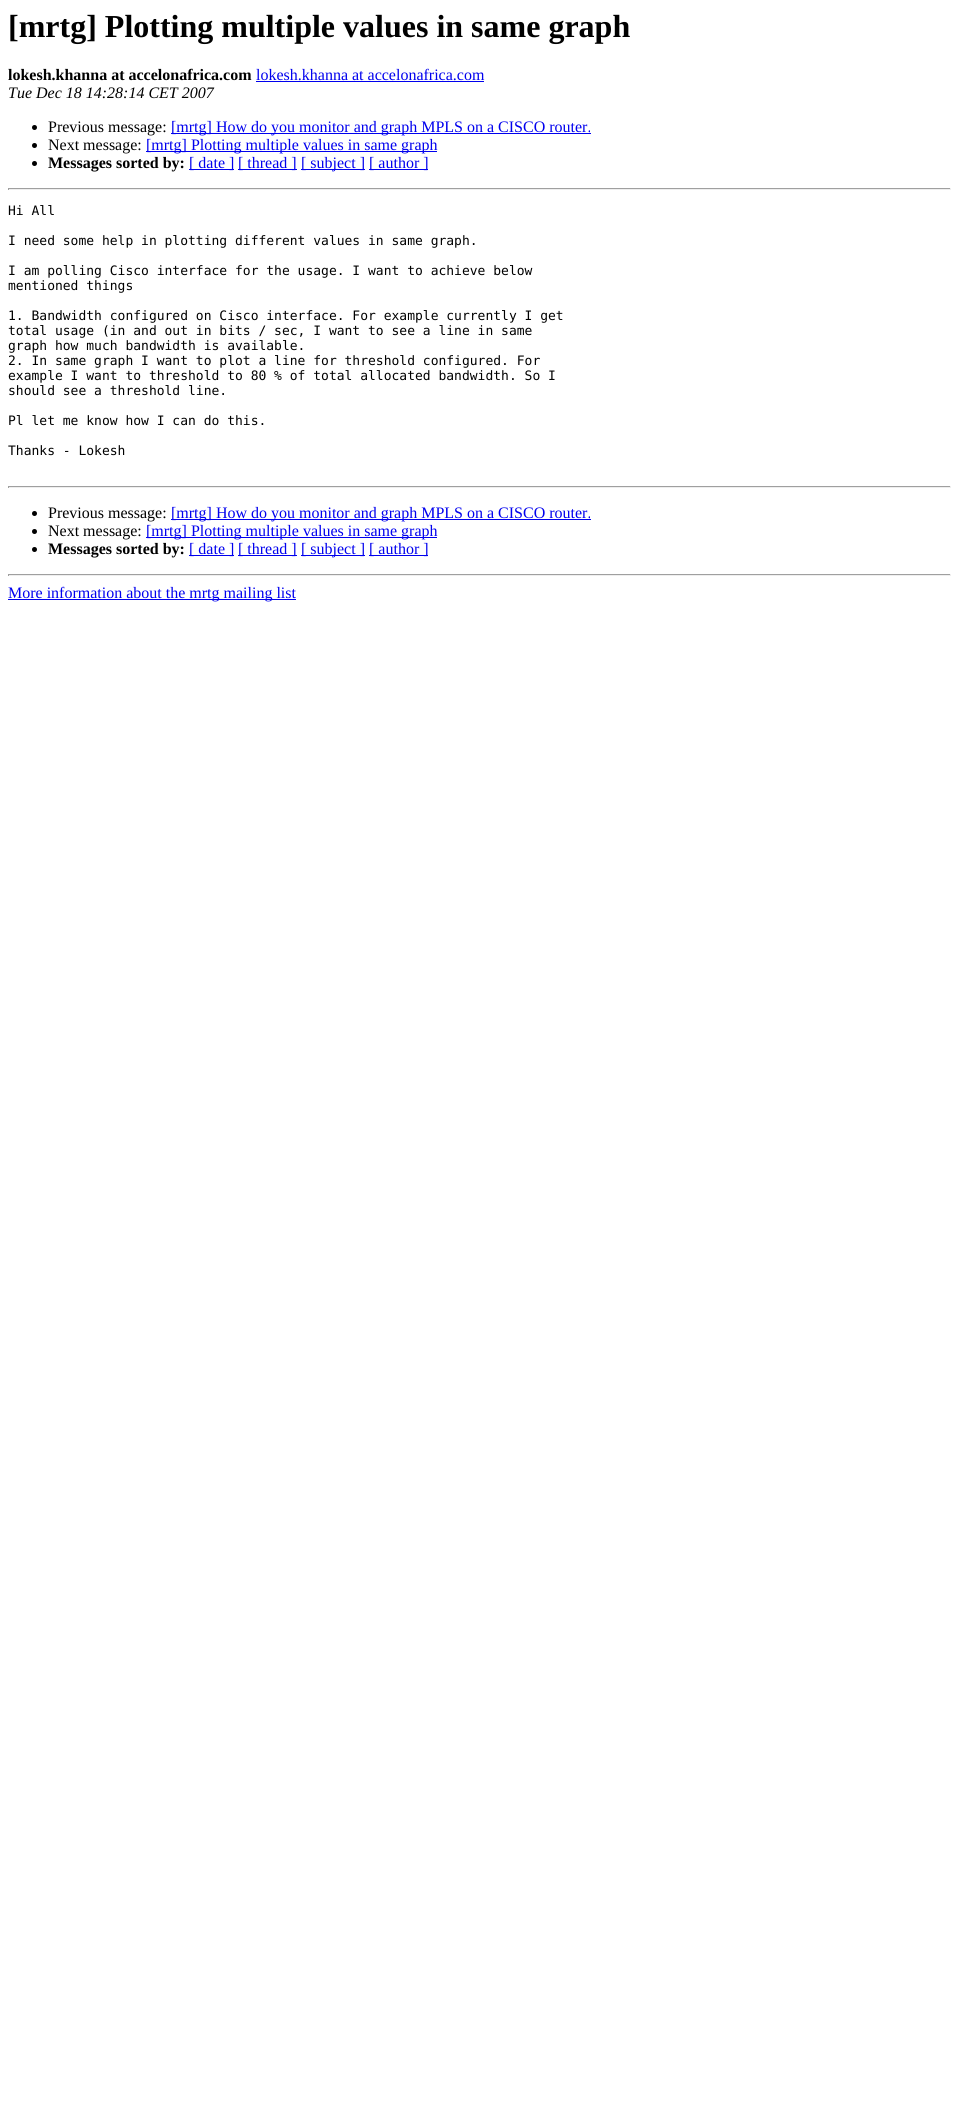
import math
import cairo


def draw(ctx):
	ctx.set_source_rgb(1, 1, 1)
	ctx.paint()
	ctx.select_font_face('Liberation Serif', cairo.FONT_SLANT_NORMAL, cairo.FONT_WEIGHT_BOLD)
	ctx.set_font_size(32)
	ctx.set_source_rgb(0, 0, 0)
	ctx.move_to(8, 37)
	ctx.show_text('[mrtg] Plotting multiple values in same graph')
	ctx.set_font_size(16)
	ctx.move_to(8, 80)
	ctx.show_text('lokesh.khanna at accelonafrica.com')
	ctx.select_font_face('Liberation Serif')
	ctx.set_source_rgb(0, 0, 0.933)
	ctx.move_to(256, 80)
	ctx.show_text('lokesh.khanna at accelonafrica.com')
	ctx.rectangle(256, 81, 228, 1)
	ctx.fill()
	ctx.select_font_face('Liberation Serif', cairo.FONT_SLANT_ITALIC)
	ctx.set_source_rgb(0, 0, 0)
	ctx.move_to(8, 98)
	ctx.show_text('Tue Dec 18 14:28:14 CET 2007')
	ctx.new_path()
	ctx.arc(34.5, 127.5, 2.5, 0, 2 * math.pi)
	ctx.fill()
	ctx.select_font_face('Liberation Serif')
	ctx.move_to(48, 132)
	ctx.show_text('Previous message:')
	ctx.set_source_rgb(0, 0, 0.933)
	ctx.rectangle(171, 133, 420, 1)
	ctx.fill()
	ctx.move_to(171, 132)
	ctx.show_text('[mrtg] How do you monitor and graph MPLS on a CISCO router.')
	ctx.set_source_rgb(0, 0, 0)
	ctx.new_path()
	ctx.arc(34.5, 145.5, 2.5, 0, 2 * math.pi)
	ctx.fill()
	ctx.move_to(48, 150)
	ctx.show_text('Next message:')
	ctx.set_source_rgb(0, 0, 0.933)
	ctx.rectangle(146, 151, 291, 1)
	ctx.fill()
	ctx.move_to(146, 150)
	ctx.show_text('[mrtg] Plotting multiple values in same graph')
	ctx.set_source_rgb(0, 0, 0)
	ctx.new_path()
	ctx.arc(34.5, 163.5, 2.5, 0, 2 * math.pi)
	ctx.fill()
	ctx.select_font_face('Liberation Serif', cairo.FONT_SLANT_NORMAL, cairo.FONT_WEIGHT_BOLD)
	ctx.move_to(48, 168)
	ctx.show_text('Messages sorted by:')
	ctx.set_source_rgb(0, 0, 0.933)
	ctx.rectangle(189, 169, 45, 1)
	ctx.fill()
	ctx.select_font_face('Liberation Serif')
	ctx.move_to(189, 168)
	ctx.show_text('[ date ]')
	ctx.rectangle(238, 169, 59, 1)
	ctx.fill()
	ctx.move_to(238, 168)
	ctx.show_text('[ thread ]')
	ctx.rectangle(301, 169, 64, 1)
	ctx.fill()
	ctx.move_to(301, 168)
	ctx.show_text('[ subject ]')
	ctx.rectangle(369, 169, 59, 1)
	ctx.fill()
	ctx.move_to(369, 168)
	ctx.show_text('[ author ]')
	ctx.set_source_rgb(0.624, 0.624, 0.624)
	ctx.rectangle(8, 188, 943, 1)
	ctx.fill()
	ctx.set_source_rgb(0.933, 0.933, 0.933)
	ctx.rectangle(950, 188, 1, 2)
	ctx.rectangle(8, 189, 943, 1)
	ctx.fill()
	ctx.set_source_rgb(0.624, 0.624, 0.624)
	ctx.rectangle(8, 188, 1, 2)
	ctx.fill()
	ctx.select_font_face('DejaVu Sans Mono')
	ctx.set_font_size(13)
	ctx.set_source_rgb(0, 0, 0)
	for x, y, s in [
		(8, 215, 'Hi All'),
		(8, 245, 'I need some help in plotting different values in same graph.'),
		(8, 275, 'I am polling Cisco interface for the usage. I want to achieve below'),
		(8, 290, 'mentioned things'),
		(8, 320, '1. Bandwidth configured on Cisco interface. For example currently I get'),
		(8, 335, 'total usage (in and out in bits / sec, I want to see a line in same'),
		(8, 350, 'graph how much bandwidth is available.'),
		(8, 365, '2. In same graph I want to plot a line for threshold configured. For'),
		(8, 380, 'example I want to threshold to 80 % of total allocated bandwidth. So I'),
		(8, 395, 'should see a threshold line.'),
		(8, 425, 'Pl let me know how I can do this.'),
		(8, 455, 'Thanks - Lokesh'),
	]:
		ctx.move_to(x, y)
		ctx.show_text(s)
	ctx.set_source_rgb(0.624, 0.624, 0.624)
	ctx.rectangle(8, 486, 943, 1)
	ctx.fill()
	ctx.set_source_rgb(0.933, 0.933, 0.933)
	ctx.rectangle(950, 486, 1, 2)
	ctx.rectangle(8, 487, 943, 1)
	ctx.fill()
	ctx.set_source_rgb(0.624, 0.624, 0.624)
	ctx.rectangle(8, 486, 1, 2)
	ctx.fill()
	ctx.set_source_rgb(0, 0, 0)
	ctx.arc(34.5, 513.5, 2.5, 0, 2 * math.pi)
	ctx.fill()
	ctx.select_font_face('Liberation Serif')
	ctx.set_font_size(16)
	ctx.move_to(48, 518)
	ctx.show_text('Previous message:')
	ctx.set_source_rgb(0, 0, 0.933)
	ctx.rectangle(171, 519, 420, 1)
	ctx.fill()
	ctx.move_to(171, 518)
	ctx.show_text('[mrtg] How do you monitor and graph MPLS on a CISCO router.')
	ctx.set_source_rgb(0, 0, 0)
	ctx.new_path()
	ctx.arc(34.5, 531.5, 2.5, 0, 2 * math.pi)
	ctx.fill()
	ctx.move_to(48, 536)
	ctx.show_text('Next message:')
	ctx.set_source_rgb(0, 0, 0.933)
	ctx.rectangle(146, 537, 291, 1)
	ctx.fill()
	ctx.move_to(146, 536)
	ctx.show_text('[mrtg] Plotting multiple values in same graph')
	ctx.set_source_rgb(0, 0, 0)
	ctx.new_path()
	ctx.arc(34.5, 549.5, 2.5, 0, 2 * math.pi)
	ctx.fill()
	ctx.select_font_face('Liberation Serif', cairo.FONT_SLANT_NORMAL, cairo.FONT_WEIGHT_BOLD)
	ctx.move_to(48, 554)
	ctx.show_text('Messages sorted by:')
	ctx.set_source_rgb(0, 0, 0.933)
	ctx.rectangle(189, 555, 45, 1)
	ctx.fill()
	ctx.select_font_face('Liberation Serif')
	ctx.move_to(189, 554)
	ctx.show_text('[ date ]')
	ctx.rectangle(238, 555, 59, 1)
	ctx.fill()
	ctx.move_to(238, 554)
	ctx.show_text('[ thread ]')
	ctx.rectangle(301, 555, 64, 1)
	ctx.fill()
	ctx.move_to(301, 554)
	ctx.show_text('[ subject ]')
	ctx.rectangle(369, 555, 59, 1)
	ctx.fill()
	ctx.move_to(369, 554)
	ctx.show_text('[ author ]')
	ctx.set_source_rgb(0.624, 0.624, 0.624)
	ctx.rectangle(8, 574, 943, 1)
	ctx.fill()
	ctx.set_source_rgb(0.933, 0.933, 0.933)
	ctx.rectangle(950, 574, 1, 2)
	ctx.rectangle(8, 575, 943, 1)
	ctx.fill()
	ctx.set_source_rgb(0.624, 0.624, 0.624)
	ctx.rectangle(8, 574, 1, 2)
	ctx.fill()
	ctx.set_source_rgb(0, 0, 0.933)
	ctx.rectangle(8, 599, 288, 1)
	ctx.fill()
	ctx.move_to(8, 598)
	ctx.show_text('More information about the mrtg mailing list')


surface = cairo.ImageSurface(cairo.FORMAT_RGB24, 959, 2113)
ctx = cairo.Context(surface)
options = cairo.FontOptions()
options.set_hint_metrics(cairo.HINT_METRICS_OFF)
options.set_hint_style(cairo.HINT_STYLE_NONE)
ctx.set_font_options(options)
ctx.set_miter_limit(4)
draw(ctx)
surface.write_to_png('image.png')
